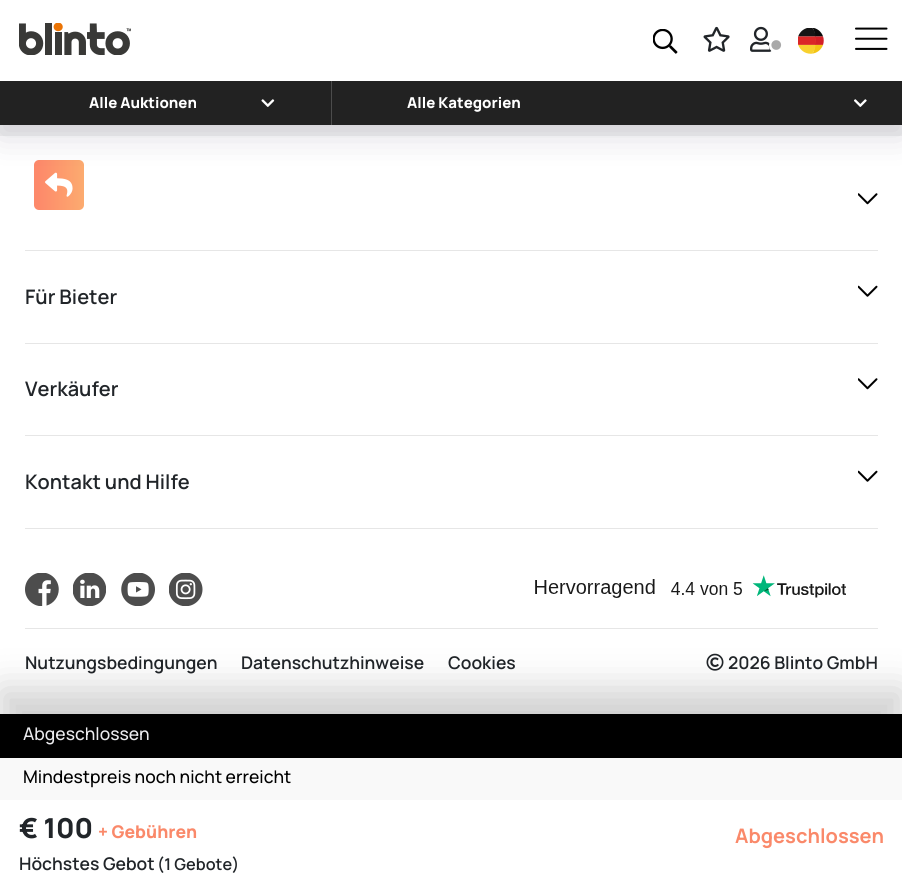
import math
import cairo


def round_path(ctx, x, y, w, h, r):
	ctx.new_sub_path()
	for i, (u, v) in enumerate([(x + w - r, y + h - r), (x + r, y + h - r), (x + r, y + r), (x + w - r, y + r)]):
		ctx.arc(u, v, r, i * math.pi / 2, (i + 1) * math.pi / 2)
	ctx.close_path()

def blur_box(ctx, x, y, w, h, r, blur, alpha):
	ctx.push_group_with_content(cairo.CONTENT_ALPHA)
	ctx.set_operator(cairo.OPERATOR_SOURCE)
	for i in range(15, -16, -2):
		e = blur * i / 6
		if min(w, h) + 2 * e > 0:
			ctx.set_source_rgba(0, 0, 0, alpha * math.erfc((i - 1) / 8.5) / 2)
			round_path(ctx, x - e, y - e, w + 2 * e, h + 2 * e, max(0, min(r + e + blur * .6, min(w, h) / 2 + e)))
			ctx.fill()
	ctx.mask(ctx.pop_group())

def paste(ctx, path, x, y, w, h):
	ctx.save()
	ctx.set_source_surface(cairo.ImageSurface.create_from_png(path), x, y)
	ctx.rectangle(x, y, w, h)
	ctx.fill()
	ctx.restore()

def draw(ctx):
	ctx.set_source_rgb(1, 1, 1)
	ctx.paint()
	ctx.set_source_rgb(0.945, 0.945, 0.945)
	ctx.rectangle(0, 125, 902, 11)
	ctx.fill()
	gradient = cairo.LinearGradient(34, 185, 114, 185)
	gradient.add_color_stop_rgba(0.05, 0.992, 0.537, 0.416, 1)
	gradient.add_color_stop_rgba(1, 0.988, 0.757, 0.451, 1)
	ctx.set_source(gradient)
	round_path(ctx, 34, 160, 50, 50, 5)
	ctx.fill()
	paste(ctx, 'media/10.png', 45, 172, 28, 25)
	ctx.set_source_rgb(0.078, 0.039, 0.188)
	blur_box(ctx, 0, 10, 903, 125, 0, 17, 0.15)
	ctx.set_source_rgb(0.133, 0.133, 0.133)
	ctx.rectangle(0, 81, 902, 44)
	ctx.fill()
	ctx.set_source_rgb(1, 1, 1)
	ctx.rectangle(0, 0, 902, 81)
	ctx.fill()
	paste(ctx, 'media/1.png', 19, 23, 112, 32)
	paste(ctx, 'media/2.png', 653, 29, 25, 25)
	paste(ctx, 'media/3.png', 703, 26, 27, 26)
	paste(ctx, 'media/4.png', 750, 26, 22, 26)
	ctx.arc(776.5, 45.5, 7.5, 0, 2 * math.pi)
	ctx.fill()
	paste(ctx, 'media/5.png', 771, 40, 11, 10)
	paste(ctx, 'media/6.png', 798, 28, 26, 26)
	paste(ctx, 'media/7.png', 855, 27, 33, 23)
	ctx.select_font_face('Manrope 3 ExtraLight')
	ctx.set_font_size(15)
	ctx.move_to(89, 108)
	ctx.show_text('Alle Auktionen')
	paste(ctx, 'media/8.png', 261, 99, 14, 8)
	ctx.set_source_rgb(0.298, 0.298, 0.298)
	ctx.rectangle(331, 81, 1, 44)
	ctx.fill()
	ctx.set_source_rgb(1, 1, 1)
	ctx.move_to(407, 108)
	ctx.show_text('Alle Kategorien')
	paste(ctx, 'media/9.png', 854, 99, 13, 8)
	ctx.set_source_rgb(0.902, 0.902, 0.902)
	ctx.rectangle(25, 250, 853, 1)
	ctx.fill()
	paste(ctx, 'media/11.png', 858, 193, 20, 12)
	ctx.rectangle(25, 343, 853, 1)
	ctx.fill()
	ctx.select_font_face('Manrope ExtraLight')
	ctx.set_font_size(20)
	ctx.set_source_rgb(0.129, 0.145, 0.161)
	ctx.move_to(25, 304)
	ctx.show_text('Für Bieter')
	paste(ctx, 'media/12.png', 858, 285, 20, 12)
	ctx.set_source_rgb(0.902, 0.902, 0.902)
	ctx.rectangle(25, 435, 853, 1)
	ctx.fill()
	ctx.set_source_rgb(0.129, 0.145, 0.161)
	ctx.move_to(25, 396)
	ctx.show_text('Verkäufer')
	paste(ctx, 'media/11.png', 858, 378, 20, 12)
	ctx.set_source_rgb(0.902, 0.902, 0.902)
	ctx.rectangle(25, 528, 853, 1)
	ctx.fill()
	ctx.set_source_rgb(0.129, 0.145, 0.161)
	ctx.move_to(25, 489)
	ctx.show_text('Kontakt und Hilfe')
	paste(ctx, 'media/12.png', 858, 470, 20, 12)
	paste(ctx, 'media/13.png', 25, 573, 34, 33)
	paste(ctx, 'media/14.png', 73, 573, 33, 33)
	paste(ctx, 'media/15.png', 121, 573, 34, 33)
	paste(ctx, 'media/16.png', 169, 573, 34, 33)
	paste(ctx, 'media/17.png', 535, 575, 311, 23)
	ctx.set_source_rgb(0.902, 0.902, 0.902)
	ctx.rectangle(25, 628, 853, 1)
	ctx.fill()
	ctx.set_font_size(17.5)
	ctx.set_source_rgb(0.129, 0.145, 0.161)
	for x, y, s in [
		(25, 669, 'Nutzungsbedingungen'),
		(241, 669, 'Datenschutzhinweise'),
		(448, 669, 'Cookies'),
	]:
		ctx.move_to(x, y)
		ctx.show_text(s)
	paste(ctx, 'media/18.png', 706, 653, 18, 18)
	ctx.move_to(728, 669)
	ctx.show_text('2026 Blinto GmbH')
	ctx.set_source_rgb(0, 0, 0)
	blur_box(ctx, 0, 689, 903, 174, 0, 19, 0.19)
	ctx.set_source_rgb(0, 0, 0)
	ctx.rectangle(0, 714, 902, 44)
	ctx.fill()
	ctx.select_font_face('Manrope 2 ExtraLight')
	ctx.set_source_rgb(0.918, 0.918, 0.933)
	ctx.move_to(23, 740)
	ctx.show_text('Abgeschlossen')
	ctx.set_source_rgb(0.973, 0.973, 0.973)
	ctx.rectangle(0, 758, 902, 42)
	ctx.fill()
	ctx.set_source_rgb(0, 0, 0)
	ctx.move_to(23, 783)
	ctx.show_text('Mindestpreis noch nicht erreicht')
	ctx.set_source_rgb(1, 1, 1)
	ctx.rectangle(0, 800, 902, 87)
	ctx.fill()
	ctx.select_font_face('Manrope 3 ExtraLight')
	ctx.set_font_size(27.5)
	ctx.set_source_rgb(0.129, 0.145, 0.161)
	ctx.move_to(19, 838)
	ctx.show_text('€ 100')
	ctx.set_font_size(17.5)
	ctx.set_source_rgb(0.98, 0.537, 0.416)
	ctx.move_to(98, 838)
	ctx.show_text('+ Gebühren')
	ctx.select_font_face('Manrope ExtraLight')
	ctx.set_source_rgb(0.129, 0.145, 0.161)
	ctx.move_to(19, 870)
	ctx.show_text('Höchstes Gebot')
	ctx.set_font_size(16.25)
	ctx.move_to(157, 870)
	ctx.show_text('(1 Gebote)')
	ctx.select_font_face('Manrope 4 ExtraLight')
	ctx.set_font_size(20)
	ctx.set_source_rgb(0.98, 0.537, 0.416)
	ctx.move_to(735, 843)
	ctx.show_text('Abgeschlossen')


surface = cairo.ImageSurface(cairo.FORMAT_RGB24, 902, 887)
ctx = cairo.Context(surface)
options = cairo.FontOptions()
options.set_hint_metrics(cairo.HINT_METRICS_OFF)
options.set_hint_style(cairo.HINT_STYLE_NONE)
ctx.set_font_options(options)
ctx.set_miter_limit(4)
draw(ctx)
surface.write_to_png('image.png')
